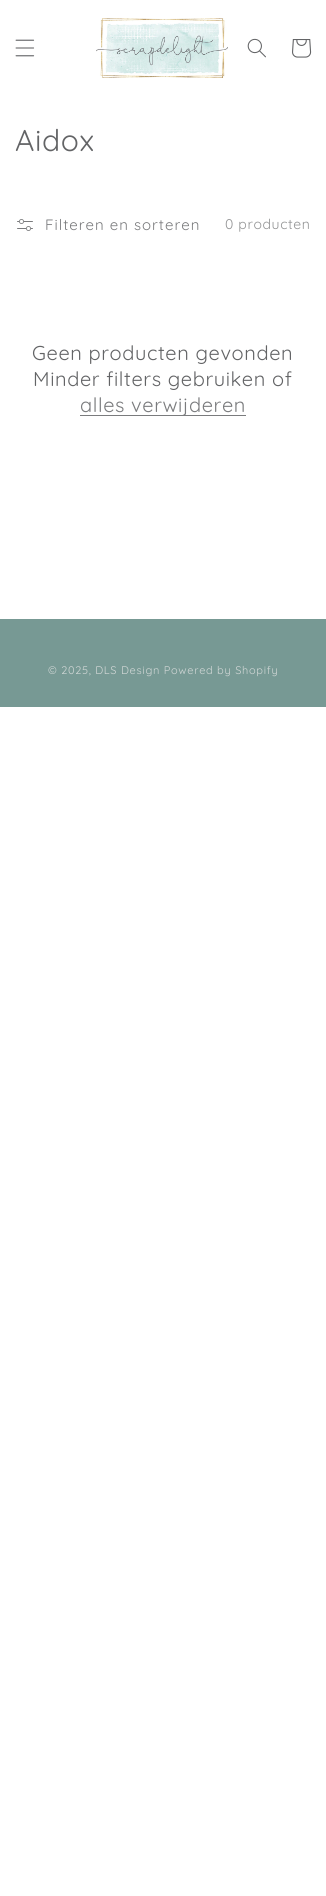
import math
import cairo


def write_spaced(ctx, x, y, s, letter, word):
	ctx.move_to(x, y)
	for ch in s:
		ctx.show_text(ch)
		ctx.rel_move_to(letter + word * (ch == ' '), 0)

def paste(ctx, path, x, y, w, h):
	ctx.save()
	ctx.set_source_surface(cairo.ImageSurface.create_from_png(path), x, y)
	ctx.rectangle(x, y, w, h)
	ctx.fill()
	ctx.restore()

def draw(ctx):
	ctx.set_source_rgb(1, 1, 1)
	ctx.paint()
	paste(ctx, 'media/1.png', 15, 39, 20, 18)
	paste(ctx, 'media/2.png', 96, 18, 132, 60)
	paste(ctx, 'media/3.png', 247, 38, 19, 20)
	paste(ctx, 'media/4.png', 292, 39, 20, 19)
	ctx.select_font_face('Quicksand')
	ctx.set_font_size(30)
	ctx.set_source_rgb(0.388, 0.392, 0.4)
	write_spaced(ctx, 15, 151, 'Aidox', 0.6, 0)
	paste(ctx, 'media/5.png', 17, 219, 16, 12)
	ctx.set_font_size(15)
	ctx.set_source_rgb(0.478, 0.482, 0.49)
	write_spaced(ctx, 45, 230, 'Filteren en sorteren', 1, 0)
	ctx.set_font_size(14)
	ctx.set_source_rgb(0.573, 0.576, 0.58)
	write_spaced(ctx, 225, 229, '0 producten', 0.6, 0)
	ctx.set_font_size(20)
	ctx.set_source_rgb(0.388, 0.392, 0.4)
	write_spaced(ctx, 32, 360, 'Geen producten gevonden', 0.6, 0)
	write_spaced(ctx, 33, 386, 'Minder filters gebruiken of', 0.6, 0)
	ctx.set_source_rgb(0.478, 0.482, 0.49)
	ctx.rectangle(80, 415, 166, 1)
	ctx.fill()
	write_spaced(ctx, 80, 412, 'alles verwijderen', 0.6, 0)
	ctx.set_source_rgb(0.467, 0.6, 0.58)
	ctx.rectangle(0, 619, 326, 88)
	ctx.fill()
	ctx.set_font_size(11)
	ctx.set_source_rgb(0.82, 0.843, 0.839)
	write_spaced(ctx, 48, 674, '© 2025, DLS Design Powered by Shopify', 0.7, 0)


surface = cairo.ImageSurface(cairo.FORMAT_RGB24, 326, 1896)
ctx = cairo.Context(surface)
options = cairo.FontOptions()
options.set_hint_metrics(cairo.HINT_METRICS_OFF)
options.set_hint_style(cairo.HINT_STYLE_NONE)
ctx.set_font_options(options)
ctx.set_miter_limit(4)
draw(ctx)
surface.write_to_png('image.png')
